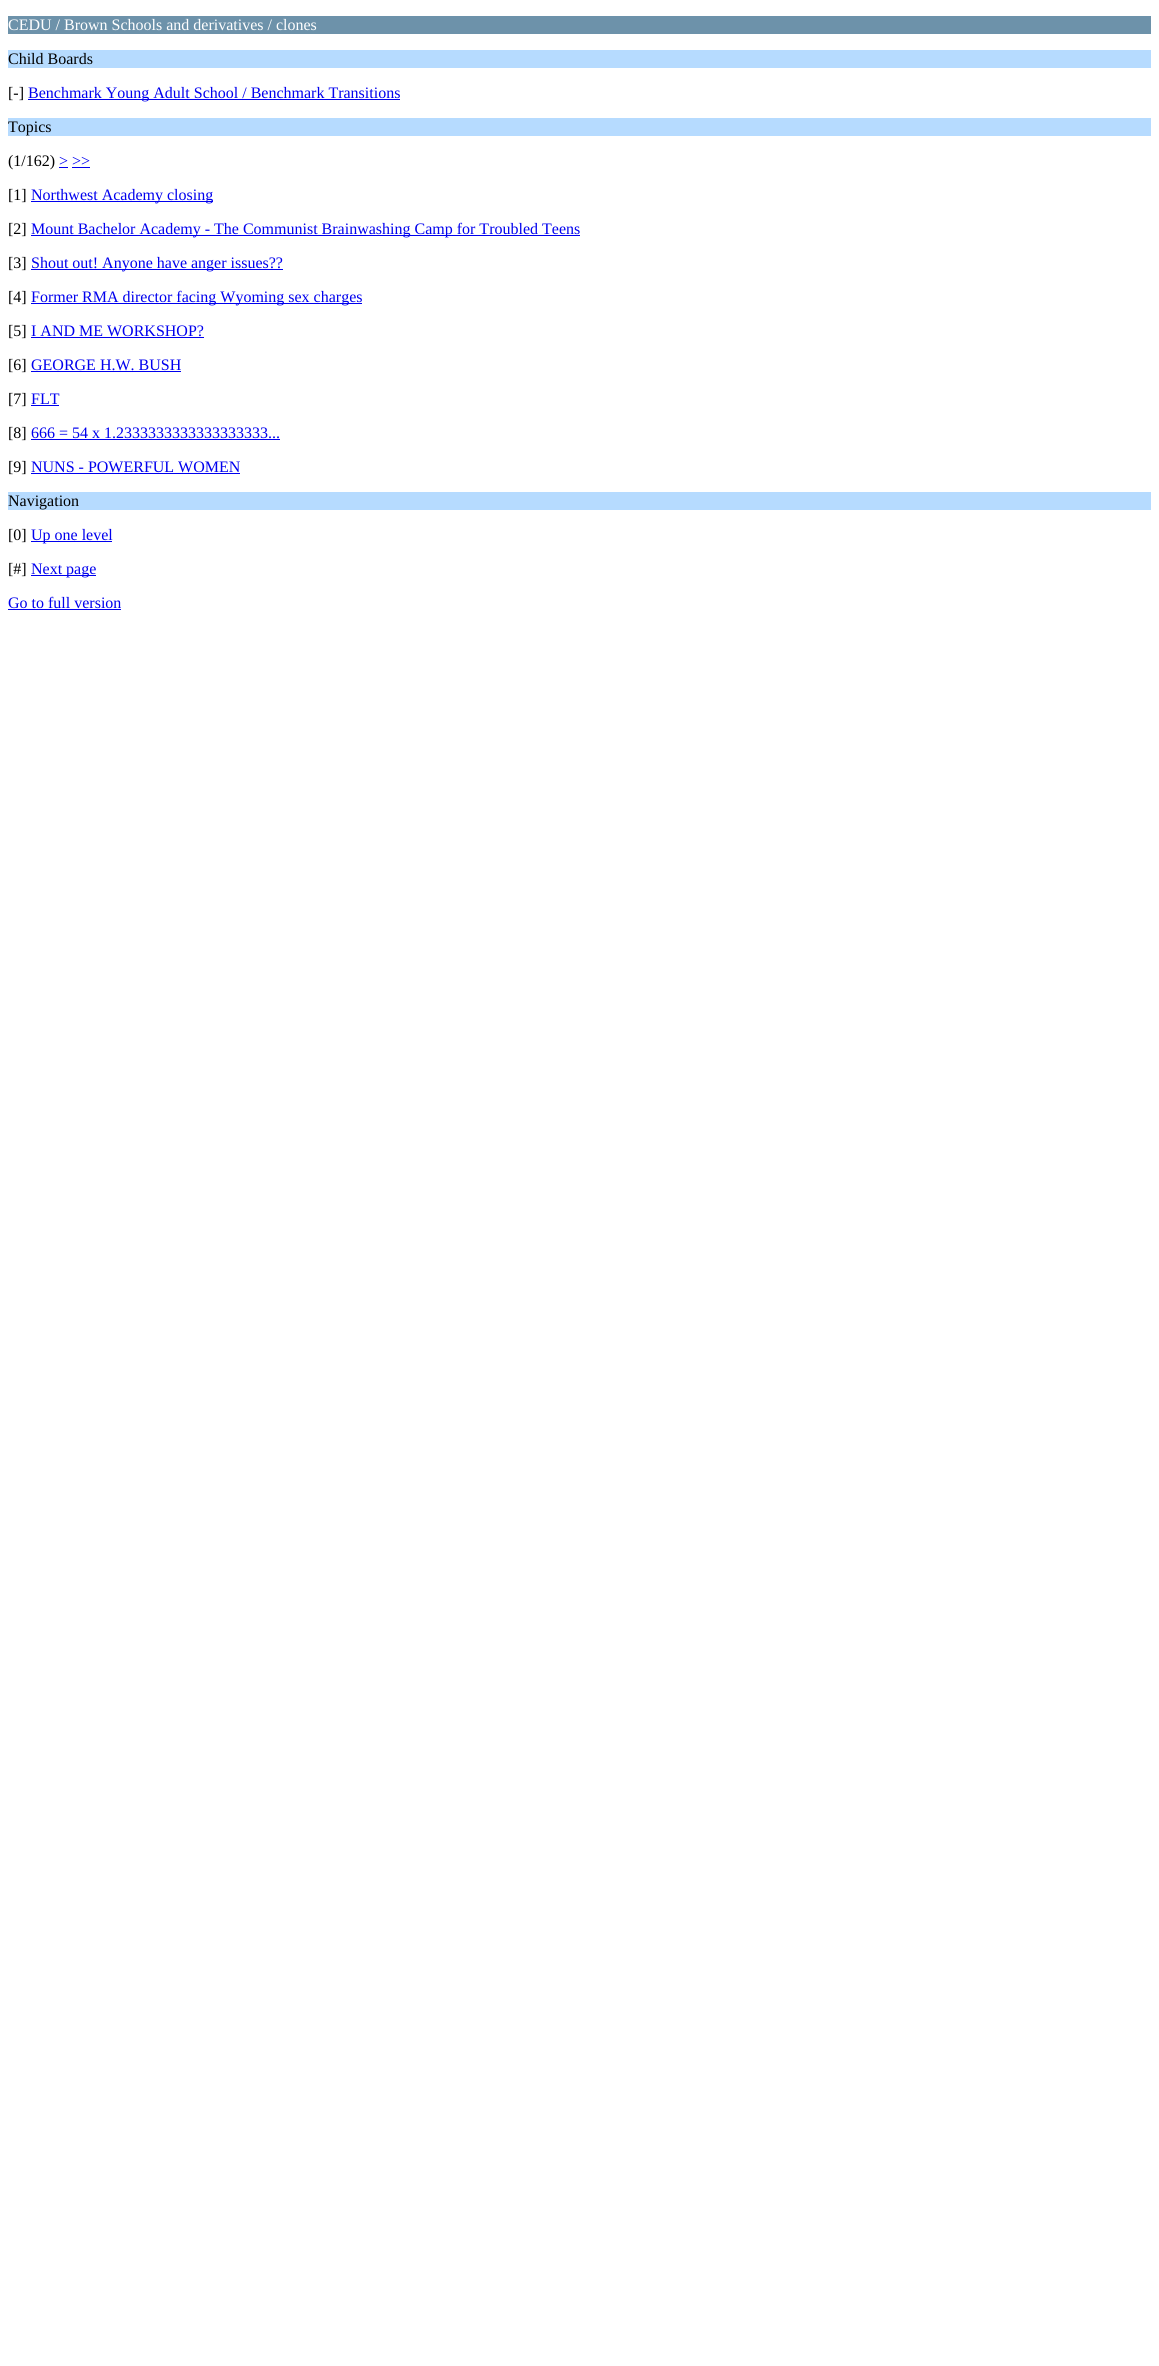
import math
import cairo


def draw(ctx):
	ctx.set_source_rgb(1, 1, 1)
	ctx.paint()
	ctx.set_source_rgb(0.427, 0.573, 0.667)
	ctx.rectangle(8, 16, 1143, 18)
	ctx.fill()
	ctx.select_font_face('Liberation Serif')
	ctx.set_font_size(16)
	ctx.set_source_rgb(1, 1, 1)
	ctx.move_to(8, 30)
	ctx.show_text('CEDU / Brown Schools and derivatives / clones')
	ctx.set_source_rgb(0.714, 0.859, 1)
	ctx.rectangle(8, 50, 1143, 18)
	ctx.fill()
	ctx.set_source_rgb(0, 0, 0)
	ctx.move_to(8, 64)
	ctx.show_text('Child Boards')
	ctx.move_to(8, 98)
	ctx.show_text('[-]')
	ctx.set_source_rgb(0, 0, 0.933)
	ctx.rectangle(28, 99, 372, 1)
	ctx.fill()
	ctx.move_to(28, 98)
	ctx.show_text('Benchmark Young Adult School / Benchmark Transitions')
	ctx.set_source_rgb(0.714, 0.859, 1)
	ctx.rectangle(8, 118, 1143, 18)
	ctx.fill()
	ctx.set_source_rgb(0, 0, 0)
	ctx.move_to(8, 132)
	ctx.show_text('Topics')
	ctx.move_to(8, 166)
	ctx.show_text('(1/162)')
	ctx.set_source_rgb(0, 0, 0.933)
	ctx.move_to(59, 166)
	ctx.show_text('> >>')
	ctx.rectangle(59, 167, 9, 1)
	ctx.fill()
	ctx.rectangle(72, 167, 18, 1)
	ctx.fill()
	ctx.set_source_rgb(0, 0, 0)
	ctx.move_to(8, 200)
	ctx.show_text('[1]')
	ctx.set_source_rgb(0, 0, 0.933)
	ctx.rectangle(31, 201, 182, 1)
	ctx.fill()
	ctx.move_to(31, 200)
	ctx.show_text('Northwest Academy closing')
	ctx.set_source_rgb(0, 0, 0)
	ctx.move_to(8, 234)
	ctx.show_text('[2]')
	ctx.set_source_rgb(0, 0, 0.933)
	ctx.rectangle(31, 235, 549, 1)
	ctx.fill()
	ctx.move_to(31, 234)
	ctx.show_text('Mount Bachelor Academy - The Communist Brainwashing Camp for Troubled Teens')
	ctx.set_source_rgb(0, 0, 0)
	ctx.move_to(8, 268)
	ctx.show_text('[3]')
	ctx.set_source_rgb(0, 0, 0.933)
	ctx.rectangle(31, 269, 252, 1)
	ctx.fill()
	ctx.move_to(31, 268)
	ctx.show_text('Shout out! Anyone have anger issues??')
	ctx.set_source_rgb(0, 0, 0)
	ctx.move_to(8, 302)
	ctx.show_text('[4]')
	ctx.set_source_rgb(0, 0, 0.933)
	ctx.rectangle(31, 303, 331, 1)
	ctx.fill()
	ctx.move_to(31, 302)
	ctx.show_text('Former RMA director facing Wyoming sex charges')
	ctx.set_source_rgb(0, 0, 0)
	ctx.move_to(8, 336)
	ctx.show_text('[5]')
	ctx.set_source_rgb(0, 0, 0.933)
	ctx.move_to(31, 336)
	ctx.show_text('I AND ME WORKSHOP?')
	ctx.rectangle(31, 337, 173, 1)
	ctx.fill()
	ctx.set_source_rgb(0, 0, 0)
	ctx.move_to(8, 370)
	ctx.show_text('[6]')
	ctx.set_source_rgb(0, 0, 0.933)
	ctx.move_to(31, 370)
	ctx.show_text('GEORGE H.W. BUSH')
	ctx.rectangle(31, 371, 150, 1)
	ctx.fill()
	ctx.set_source_rgb(0, 0, 0)
	ctx.move_to(8, 404)
	ctx.show_text('[7]')
	ctx.set_source_rgb(0, 0, 0.933)
	ctx.move_to(31, 404)
	ctx.show_text('FLT')
	ctx.rectangle(31, 405, 28, 1)
	ctx.fill()
	ctx.set_source_rgb(0, 0, 0)
	ctx.move_to(8, 438)
	ctx.show_text('[8]')
	ctx.set_source_rgb(0, 0, 0.933)
	ctx.move_to(31, 438)
	ctx.show_text('666 = 54 x 1.2333333333333333333...')
	ctx.rectangle(31, 439, 249, 1)
	ctx.fill()
	ctx.set_source_rgb(0, 0, 0)
	ctx.move_to(8, 472)
	ctx.show_text('[9]')
	ctx.set_source_rgb(0, 0, 0.933)
	ctx.move_to(31, 472)
	ctx.show_text('NUNS - POWERFUL WOMEN')
	ctx.rectangle(31, 473, 209, 1)
	ctx.fill()
	ctx.set_source_rgb(0.714, 0.859, 1)
	ctx.rectangle(8, 492, 1143, 18)
	ctx.fill()
	ctx.set_source_rgb(0, 0, 0)
	ctx.move_to(8, 506)
	ctx.show_text('Navigation')
	ctx.move_to(8, 540)
	ctx.show_text('[0]')
	ctx.set_source_rgb(0, 0, 0.933)
	ctx.rectangle(31, 541, 81, 1)
	ctx.fill()
	ctx.move_to(31, 540)
	ctx.show_text('Up one level')
	ctx.set_source_rgb(0, 0, 0)
	ctx.move_to(8, 574)
	ctx.show_text('[#]')
	ctx.set_source_rgb(0, 0, 0.933)
	ctx.rectangle(31, 575, 65, 1)
	ctx.fill()
	ctx.move_to(31, 574)
	ctx.show_text('Next page')
	ctx.move_to(8, 608)
	ctx.show_text('Go to full version')
	ctx.rectangle(8, 609, 113, 1)
	ctx.fill()


surface = cairo.ImageSurface(cairo.FORMAT_RGB24, 1159, 2366)
ctx = cairo.Context(surface)
options = cairo.FontOptions()
options.set_hint_metrics(cairo.HINT_METRICS_OFF)
options.set_hint_style(cairo.HINT_STYLE_NONE)
ctx.set_font_options(options)
ctx.set_miter_limit(4)
draw(ctx)
surface.write_to_png('image.png')
